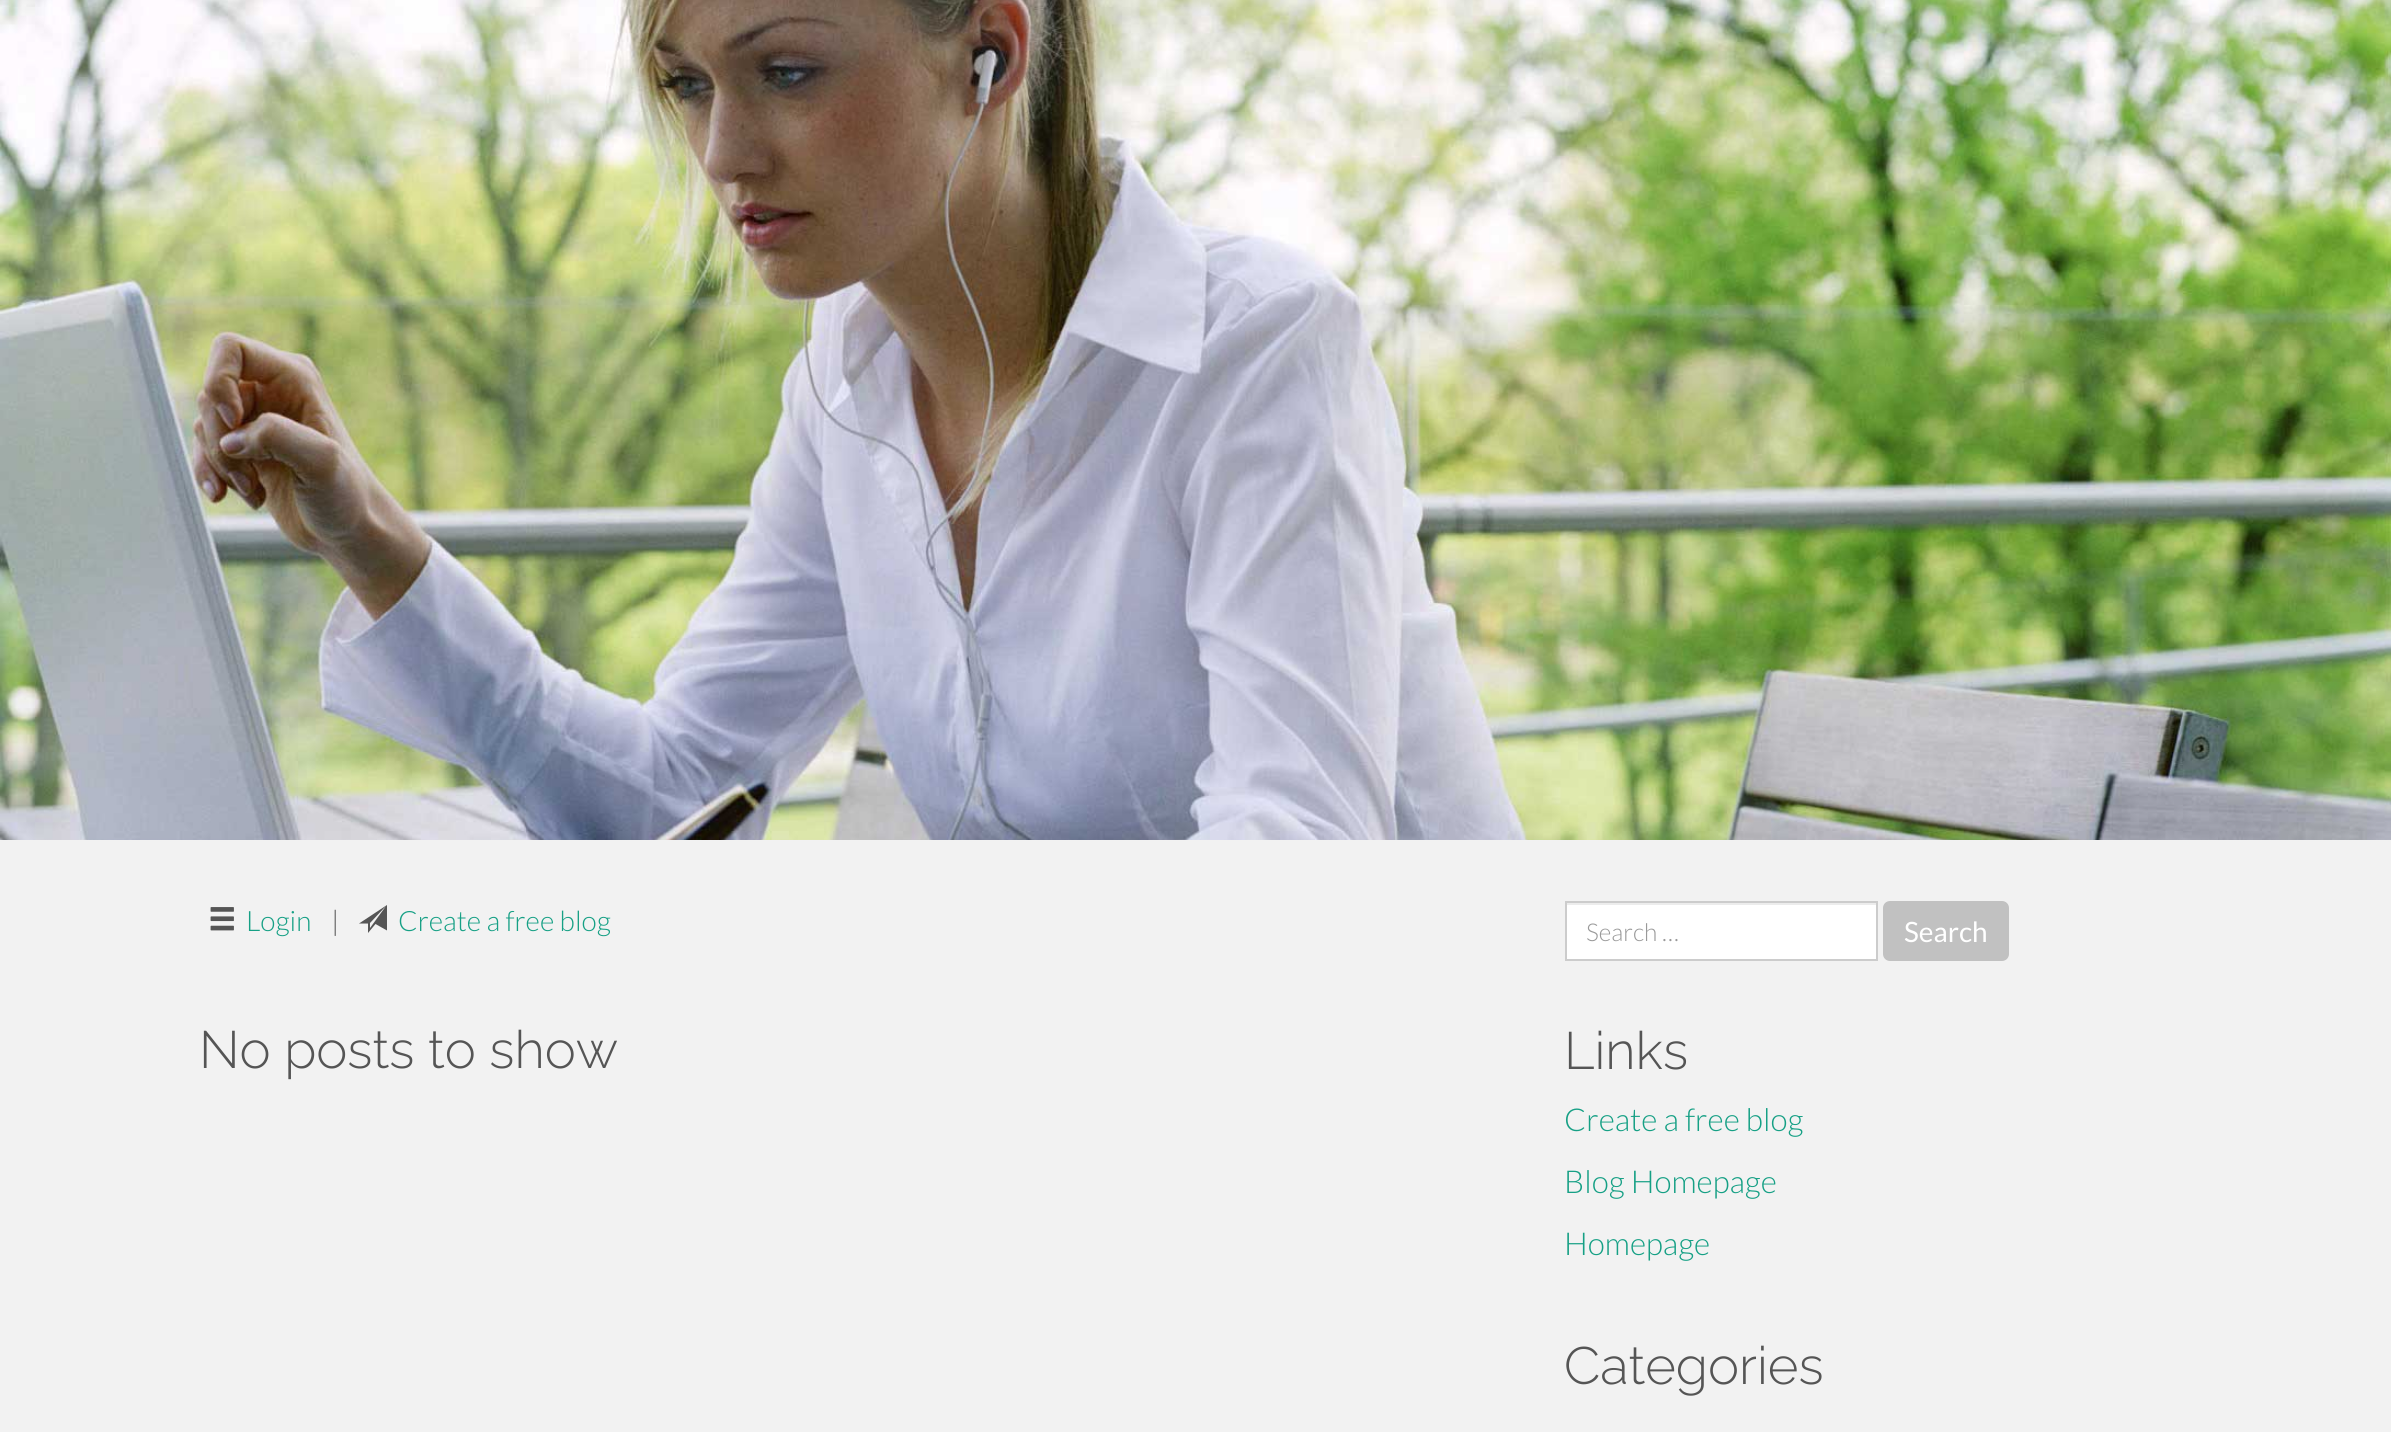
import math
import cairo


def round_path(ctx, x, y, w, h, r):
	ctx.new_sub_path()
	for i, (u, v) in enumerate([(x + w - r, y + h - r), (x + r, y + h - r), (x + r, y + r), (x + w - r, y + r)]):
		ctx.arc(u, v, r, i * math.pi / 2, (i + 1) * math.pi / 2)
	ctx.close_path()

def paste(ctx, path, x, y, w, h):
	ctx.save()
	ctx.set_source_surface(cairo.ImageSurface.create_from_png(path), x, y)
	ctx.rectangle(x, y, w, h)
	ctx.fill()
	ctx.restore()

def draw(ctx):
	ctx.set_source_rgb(0.949, 0.949, 0.949)
	ctx.paint()
	paste(ctx, 'media/1.png', 0, 0, 2391, 840)
	paste(ctx, 'media/2.png', 210, 907, 24, 24)
	ctx.select_font_face('Lato Light')
	ctx.set_font_size(28)
	ctx.set_source_rgb(0.086, 0.627, 0.522)
	ctx.move_to(246, 931)
	ctx.show_text('Login')
	ctx.set_source_rgb(0.333, 0.333, 0.333)
	ctx.move_to(331, 931)
	ctx.show_text('|')
	ctx.new_path()
	ctx.move_to(387, 930.5)
	ctx.line_to(375.5, 924)
	ctx.line_to(368, 933)
	ctx.line_to(368, 923.5)
	ctx.line_to(359, 923.5)
	ctx.line_to(387, 905)
	ctx.close_path()
	ctx.move_to(370, 923)
	ctx.line_to(370, 928)
	ctx.line_to(386, 906)
	ctx.close_path()
	ctx.fill()
	ctx.set_source_rgb(0.086, 0.627, 0.522)
	ctx.move_to(398, 931)
	ctx.show_text('Create a free blog')
	ctx.select_font_face('Raleway Light')
	ctx.set_font_size(52.5)
	ctx.set_source_rgb(0.333, 0.333, 0.333)
	ctx.move_to(199, 1068)
	ctx.show_text('No posts to show')
	ctx.set_source_rgb(1, 1, 1)
	ctx.rectangle(1567, 905, 309, 54)
	ctx.fill()
	ctx.set_source_rgb(0.925, 0.925, 0.925)
	ctx.rectangle(1566, 903, 310, 2)
	ctx.fill()
	ctx.rectangle(1566, 902, 311, 58)
	ctx.set_source_rgb(0.8, 0.8, 0.8)
	ctx.stroke()
	ctx.select_font_face('Lato Light')
	ctx.set_font_size(24.5)
	ctx.set_source_rgb(0.6, 0.6, 0.6)
	ctx.move_to(1586, 941)
	ctx.show_text('Search …')
	ctx.set_source_rgb(0.757, 0.757, 0.757)
	round_path(ctx, 1883, 901, 126, 60, 7)
	ctx.fill()
	ctx.select_font_face('Lato')
	ctx.set_font_size(28)
	ctx.set_source_rgb(1, 1, 1)
	ctx.move_to(1904, 942)
	ctx.show_text('Search')
	ctx.select_font_face('Raleway Light')
	ctx.set_font_size(52.5)
	ctx.set_source_rgb(0.333, 0.333, 0.333)
	ctx.move_to(1564, 1069)
	ctx.show_text('Links')
	ctx.select_font_face('Lato Light')
	ctx.set_font_size(31.5)
	ctx.set_source_rgb(0.086, 0.627, 0.522)
	for x, y, s in [
		(1564, 1131, 'Create a free blog'),
		(1564, 1193, 'Blog Homepage'),
		(1564, 1255, 'Homepage'),
	]:
		ctx.move_to(x, y)
		ctx.show_text(s)
	ctx.select_font_face('Raleway Light')
	ctx.set_font_size(52.5)
	ctx.set_source_rgb(0.333, 0.333, 0.333)
	ctx.move_to(1564, 1384)
	ctx.show_text('Categories')


surface = cairo.ImageSurface(cairo.FORMAT_RGB24, 2391, 1432)
ctx = cairo.Context(surface)
options = cairo.FontOptions()
options.set_hint_metrics(cairo.HINT_METRICS_OFF)
options.set_hint_style(cairo.HINT_STYLE_NONE)
ctx.set_font_options(options)
ctx.set_miter_limit(4)
draw(ctx)
surface.write_to_png('image.png')
